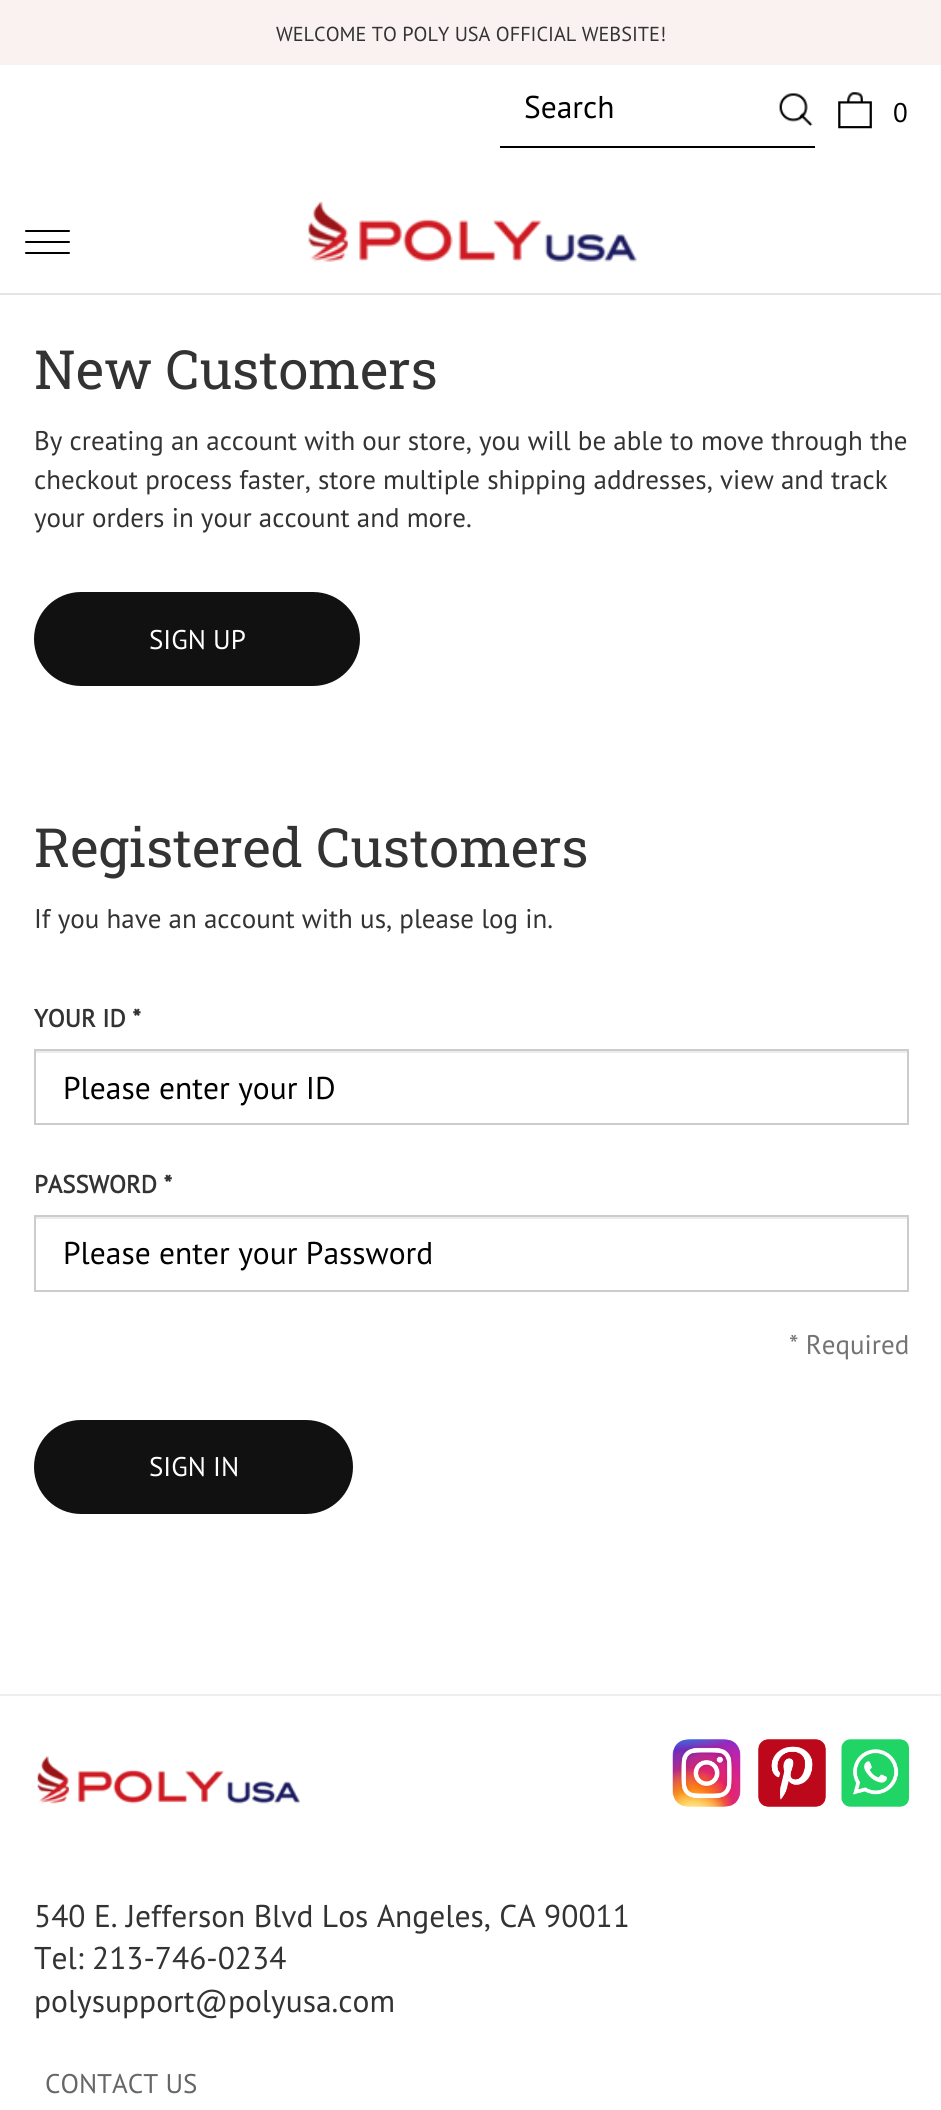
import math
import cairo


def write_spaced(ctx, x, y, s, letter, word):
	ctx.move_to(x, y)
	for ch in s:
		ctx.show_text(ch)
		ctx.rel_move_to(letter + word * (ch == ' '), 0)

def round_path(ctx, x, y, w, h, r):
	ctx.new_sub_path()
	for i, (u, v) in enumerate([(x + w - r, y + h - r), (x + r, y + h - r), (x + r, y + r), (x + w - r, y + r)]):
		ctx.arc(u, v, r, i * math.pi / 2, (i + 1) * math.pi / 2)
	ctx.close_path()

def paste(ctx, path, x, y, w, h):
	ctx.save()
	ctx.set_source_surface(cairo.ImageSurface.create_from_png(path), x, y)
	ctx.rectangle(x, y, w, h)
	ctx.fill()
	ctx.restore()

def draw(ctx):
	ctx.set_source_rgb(1, 1, 1)
	ctx.paint()
	ctx.set_source_rgb(0.898, 0.898, 0.898)
	ctx.rectangle(0, 293, 941, 2)
	ctx.fill()
	ctx.set_source_rgb(0.98, 0.949, 0.945)
	ctx.rectangle(0, 0, 941, 65)
	ctx.fill()
	ctx.select_font_face('PT Sans')
	ctx.set_font_size(20.25)
	ctx.set_source_rgb(0.2, 0.2, 0.2)
	ctx.move_to(276, 41)
	ctx.show_text('WELCOME TO POLY USA OFFICIAL WEBSITE!')
	ctx.set_source_rgb(0, 0, 0)
	ctx.rectangle(500, 146, 315, 2)
	ctx.fill()
	ctx.set_font_size(31.5)
	ctx.move_to(524, 118)
	ctx.show_text('Search')
	paste(ctx, 'media/1.png', 779, 93, 34, 34)
	paste(ctx, 'media/2.png', 838, 92, 34, 37)
	ctx.set_font_size(27)
	write_spaced(ctx, 893, 122, '0', 2, 0)
	round_path(ctx, 25, 230, 45, 2, 1)
	ctx.fill()
	round_path(ctx, 25, 241, 45, 2, 1)
	ctx.fill()
	round_path(ctx, 25, 252, 45, 2, 1)
	ctx.fill()
	paste(ctx, 'media/3.png', 308, 201, 329, 61)
	ctx.select_font_face('Roboto Slab')
	ctx.set_font_size(54)
	ctx.set_source_rgb(0.2, 0.2, 0.2)
	ctx.move_to(34, 389)
	ctx.show_text('New Customers')
	ctx.select_font_face('PT Sans')
	ctx.set_font_size(27)
	for x, y, s in [
		(34, 450, 'By creating an account with our store, you will be able to move through the'),
		(34, 489, 'checkout process faster, store multiple shipping addresses, view and track'),
		(34, 527, 'your orders in your account and more.'),
	]:
		ctx.move_to(x, y)
		ctx.show_text(s)
	ctx.set_source_rgb(0.067, 0.067, 0.067)
	round_path(ctx, 35, 593, 324, 92, 46)
	ctx.fill_preserve()
	ctx.stroke()
	ctx.set_source_rgb(1, 1, 1)
	ctx.move_to(149, 649)
	ctx.show_text('SIGN UP')
	ctx.select_font_face('Roboto Slab')
	ctx.set_font_size(54)
	ctx.set_source_rgb(0.2, 0.2, 0.2)
	ctx.move_to(34, 867)
	ctx.show_text('Registered Customers')
	ctx.select_font_face('PT Sans')
	ctx.set_font_size(27)
	ctx.move_to(34, 928)
	ctx.show_text('If you have an account with us, please log in.')
	ctx.select_font_face('PT Sans', cairo.FONT_SLANT_NORMAL, cairo.FONT_WEIGHT_BOLD)
	ctx.set_font_size(24.75)
	ctx.move_to(34, 1027)
	ctx.show_text('YOUR ID *')
	ctx.set_source_rgb(0.925, 0.925, 0.925)
	ctx.rectangle(36, 1051, 871, 2)
	ctx.fill()
	ctx.rectangle(35, 1050, 873, 74)
	ctx.set_source_rgb(0.8, 0.8, 0.8)
	ctx.stroke()
	ctx.select_font_face('PT Sans')
	ctx.set_font_size(31.5)
	ctx.set_source_rgb(0, 0, 0)
	ctx.move_to(63, 1099)
	ctx.show_text('Please enter your ID')
	ctx.select_font_face('PT Sans', cairo.FONT_SLANT_NORMAL, cairo.FONT_WEIGHT_BOLD)
	ctx.set_font_size(24.75)
	ctx.set_source_rgb(0.2, 0.2, 0.2)
	ctx.move_to(34, 1193)
	ctx.show_text('PASSWORD *')
	ctx.set_source_rgb(0.925, 0.925, 0.925)
	ctx.rectangle(36, 1217, 871, 2)
	ctx.fill()
	ctx.rectangle(35, 1216, 873, 75)
	ctx.set_source_rgb(0.8, 0.8, 0.8)
	ctx.stroke()
	ctx.select_font_face('PT Sans')
	ctx.set_font_size(31.5)
	ctx.set_source_rgb(0, 0, 0)
	ctx.move_to(63, 1264)
	ctx.show_text('Please enter your Password')
	ctx.set_font_size(27)
	ctx.set_source_rgb(0.451, 0.451, 0.451)
	ctx.move_to(789, 1354)
	ctx.show_text('* Required')
	ctx.set_source_rgb(0.067, 0.067, 0.067)
	round_path(ctx, 35, 1421, 317, 92, 46)
	ctx.fill_preserve()
	ctx.stroke()
	ctx.set_source_rgb(1, 1, 1)
	ctx.move_to(149, 1476)
	ctx.show_text('SIGN IN')
	ctx.set_source_rgb(0.933, 0.933, 0.933)
	ctx.rectangle(0, 1694, 941, 2)
	ctx.fill()
	paste(ctx, 'media/4.png', 37, 1756, 263, 48)
	paste(ctx, 'media/5.png', 672, 1739, 69, 68)
	paste(ctx, 'media/6.png', 758, 1739, 68, 68)
	paste(ctx, 'media/7.png', 841, 1739, 68, 68)
	ctx.set_font_size(31.5)
	ctx.set_source_rgb(0.2, 0.2, 0.2)
	for x, y, s in [
		(34, 1927, '540 E. Jefferson Blvd Los Angeles, CA 90011'),
		(34, 1969, 'Tel: 213-746-0234'),
		(34, 2012, 'polysupport@polyusa.com'),
	]:
		ctx.move_to(x, y)
		ctx.show_text(s)
	ctx.set_font_size(27)
	ctx.set_source_rgb(0.4, 0.4, 0.4)
	ctx.move_to(45, 2093)
	ctx.show_text('CONTACT US')


surface = cairo.ImageSurface(cairo.FORMAT_RGB24, 941, 2110)
ctx = cairo.Context(surface)
options = cairo.FontOptions()
options.set_hint_metrics(cairo.HINT_METRICS_OFF)
options.set_hint_style(cairo.HINT_STYLE_NONE)
ctx.set_font_options(options)
ctx.set_miter_limit(4)
draw(ctx)
surface.write_to_png('image.png')
